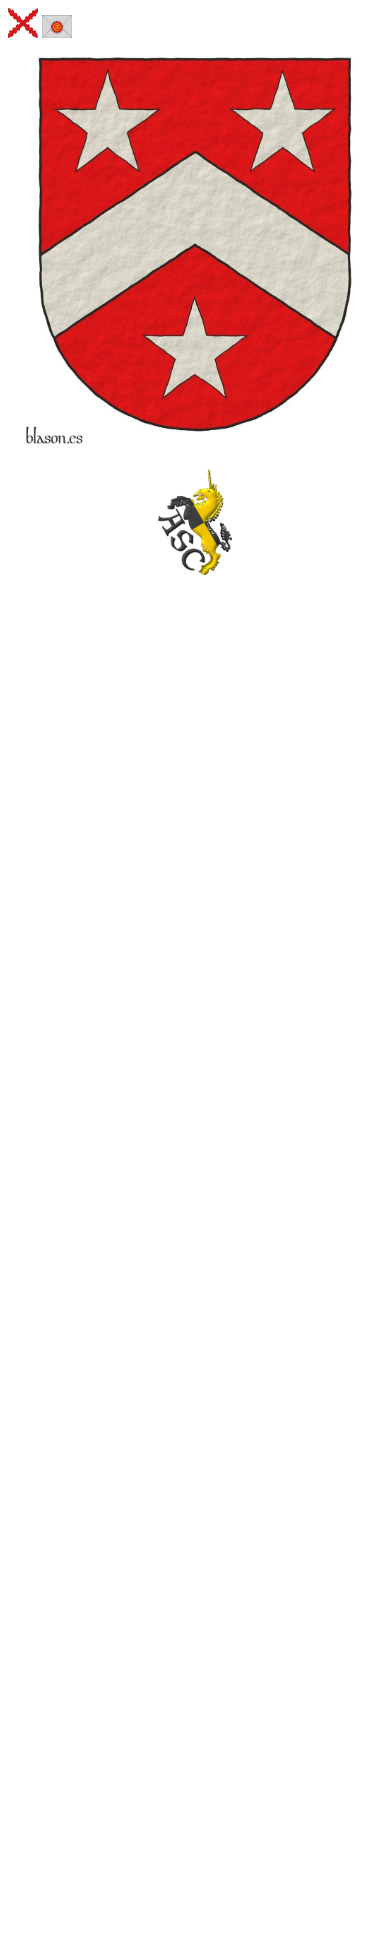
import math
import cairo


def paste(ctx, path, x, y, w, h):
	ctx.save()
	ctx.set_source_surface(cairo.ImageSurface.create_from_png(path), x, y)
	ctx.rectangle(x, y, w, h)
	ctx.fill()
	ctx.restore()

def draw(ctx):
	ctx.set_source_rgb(1, 1, 1)
	ctx.paint()
	paste(ctx, 'media/1.png', 8, 8, 30, 30)
	paste(ctx, 'media/2.png', 42, 15, 30, 23)
	paste(ctx, 'media/3.png', 26, 56, 327, 388)
	paste(ctx, 'media/4.png', 158, 469, 74, 106)


surface = cairo.ImageSurface(cairo.FORMAT_RGB24, 390, 1950)
ctx = cairo.Context(surface)
options = cairo.FontOptions()
options.set_hint_metrics(cairo.HINT_METRICS_OFF)
options.set_hint_style(cairo.HINT_STYLE_NONE)
ctx.set_font_options(options)
ctx.set_miter_limit(4)
draw(ctx)
surface.write_to_png('image.png')
